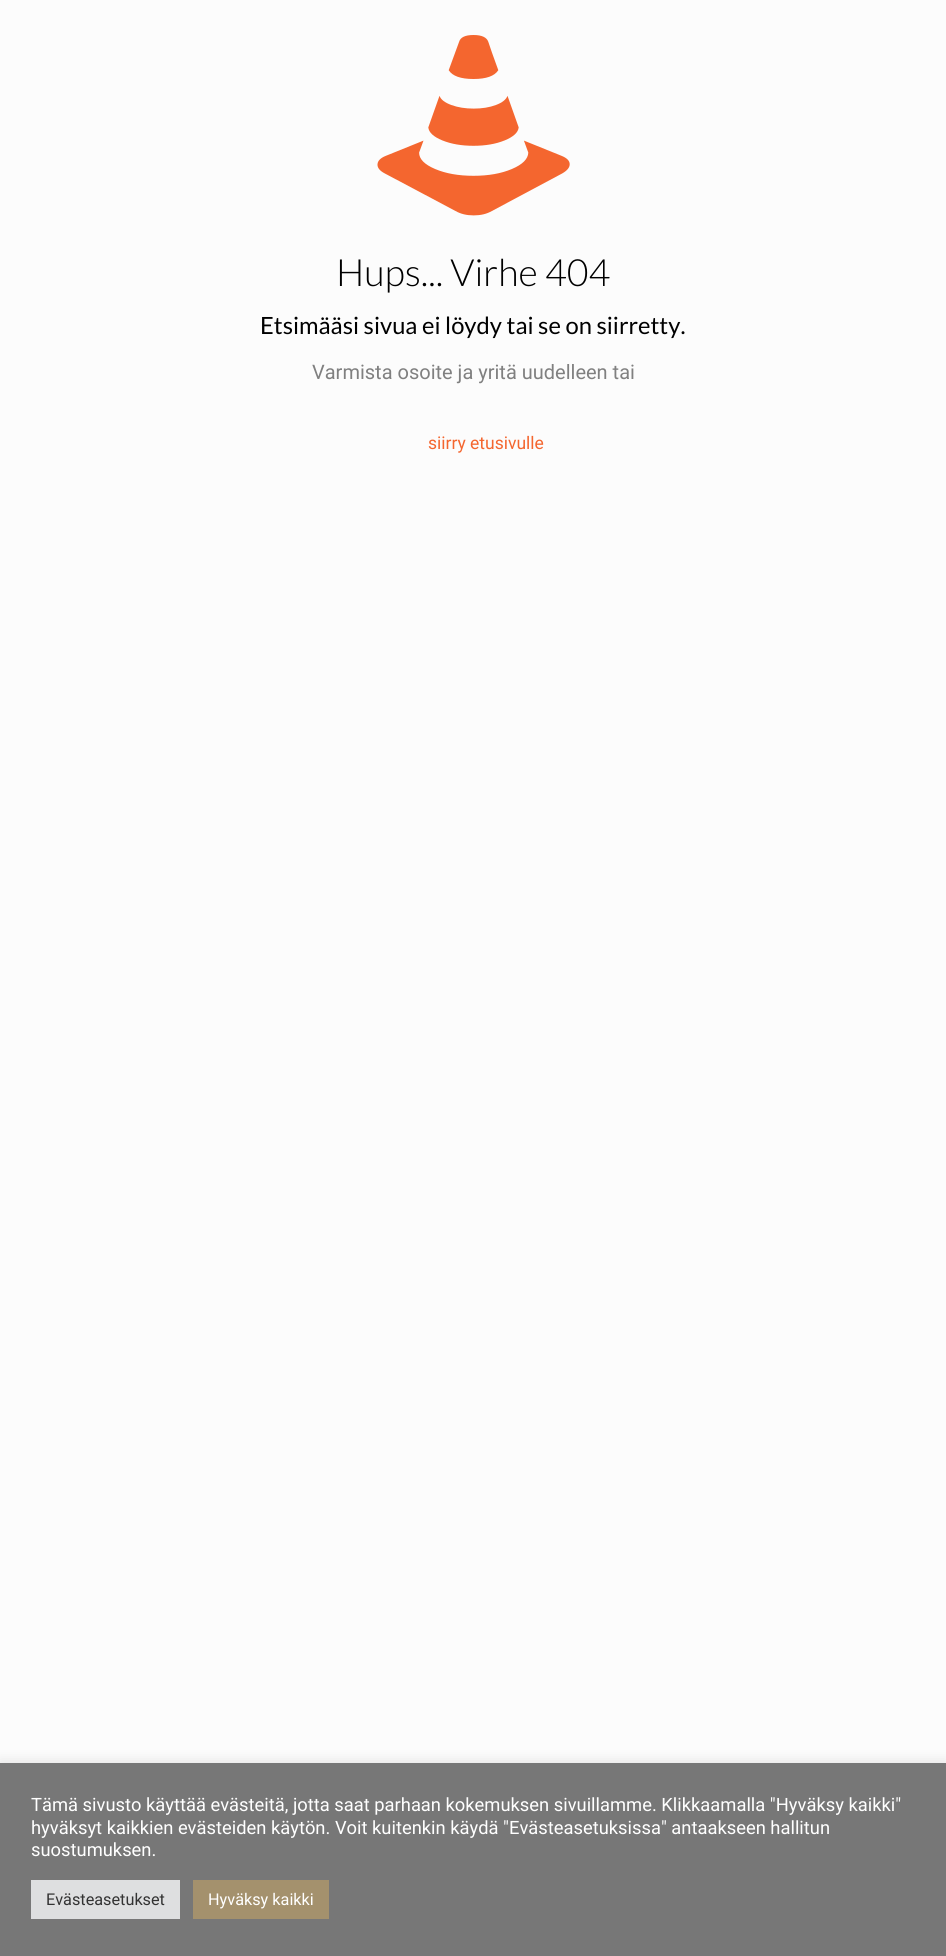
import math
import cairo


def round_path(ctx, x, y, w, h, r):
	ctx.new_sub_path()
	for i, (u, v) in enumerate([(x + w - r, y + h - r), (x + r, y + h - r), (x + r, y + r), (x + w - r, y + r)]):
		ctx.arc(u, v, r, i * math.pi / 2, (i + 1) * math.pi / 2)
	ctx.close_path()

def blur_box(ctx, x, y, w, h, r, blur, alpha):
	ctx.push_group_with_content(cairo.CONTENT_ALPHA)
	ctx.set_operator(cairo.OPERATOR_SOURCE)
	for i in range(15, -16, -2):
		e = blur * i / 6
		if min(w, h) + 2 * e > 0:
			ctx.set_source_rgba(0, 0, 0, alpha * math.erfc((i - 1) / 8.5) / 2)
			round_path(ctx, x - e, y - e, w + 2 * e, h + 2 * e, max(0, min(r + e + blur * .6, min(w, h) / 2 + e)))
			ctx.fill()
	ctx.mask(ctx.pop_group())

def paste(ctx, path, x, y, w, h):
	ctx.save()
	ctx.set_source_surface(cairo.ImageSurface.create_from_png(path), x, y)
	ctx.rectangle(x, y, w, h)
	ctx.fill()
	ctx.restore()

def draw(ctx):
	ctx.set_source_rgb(0.988, 0.988, 0.988)
	ctx.paint()
	paste(ctx, 'media/1.png', 377, 35, 193, 181)
	ctx.select_font_face('Lato Light')
	ctx.set_font_size(37.5)
	ctx.set_source_rgb(0, 0, 0)
	ctx.move_to(336, 286)
	ctx.show_text('Hups... Virhe 404')
	ctx.select_font_face('Lato')
	ctx.set_font_size(23.75)
	ctx.move_to(260, 334)
	ctx.show_text('Etsimääsi sivua ei löydy tai se on siirretty.')
	ctx.select_font_face('Roboto')
	ctx.set_font_size(20)
	ctx.set_source_rgb(0.502, 0.502, 0.502)
	ctx.move_to(312, 379)
	ctx.show_text('Varmista osoite ja yritä uudelleen tai')
	ctx.set_font_size(17.5)
	ctx.set_source_rgb(0.957, 0.4, 0.184)
	ctx.move_to(428, 449)
	ctx.show_text('siirry etusivulle')
	ctx.set_source_rgb(0.675, 0.671, 0.671)
	blur_box(ctx, 0, 1761, 946, 194, 0, 6, 0.3)
	ctx.set_source_rgb(0.467, 0.467, 0.467)
	ctx.rectangle(0, 1763, 946, 193)
	ctx.fill()
	ctx.set_font_size(18.35)
	ctx.set_source_rgb(1, 1, 1)
	for x, y, s in [
		(31, 1811, 'Tämä sivusto käyttää evästeitä, jotta saat parhaan kokemuksen sivuillamme. Klikkaamalla "Hyväksy kaikki"'),
		(31, 1834, 'hyväksyt kaikkien evästeiden käytön. Voit kuitenkin käydä "Evästeasetuksissa" antaakseen hallitun'),
		(31, 1856, 'suostumuksen.'),
	]:
		ctx.move_to(x, y)
		ctx.show_text(s)
	ctx.set_source_rgb(0.871, 0.875, 0.878)
	ctx.rectangle(31, 1880, 149, 39)
	ctx.fill()
	ctx.set_font_size(16.25)
	ctx.set_source_rgb(0.2, 0.2, 0.2)
	ctx.move_to(46, 1905)
	ctx.show_text('Evästeasetukset')
	ctx.set_source_rgb(0.643, 0.569, 0.427)
	ctx.rectangle(193, 1880, 136, 39)
	ctx.fill()
	ctx.set_source_rgb(1, 1, 1)
	ctx.move_to(208, 1905)
	ctx.show_text('Hyväksy kaikki')


surface = cairo.ImageSurface(cairo.FORMAT_RGB24, 946, 1956)
ctx = cairo.Context(surface)
options = cairo.FontOptions()
options.set_hint_metrics(cairo.HINT_METRICS_OFF)
options.set_hint_style(cairo.HINT_STYLE_NONE)
ctx.set_font_options(options)
ctx.set_miter_limit(4)
draw(ctx)
surface.write_to_png('image.png')
